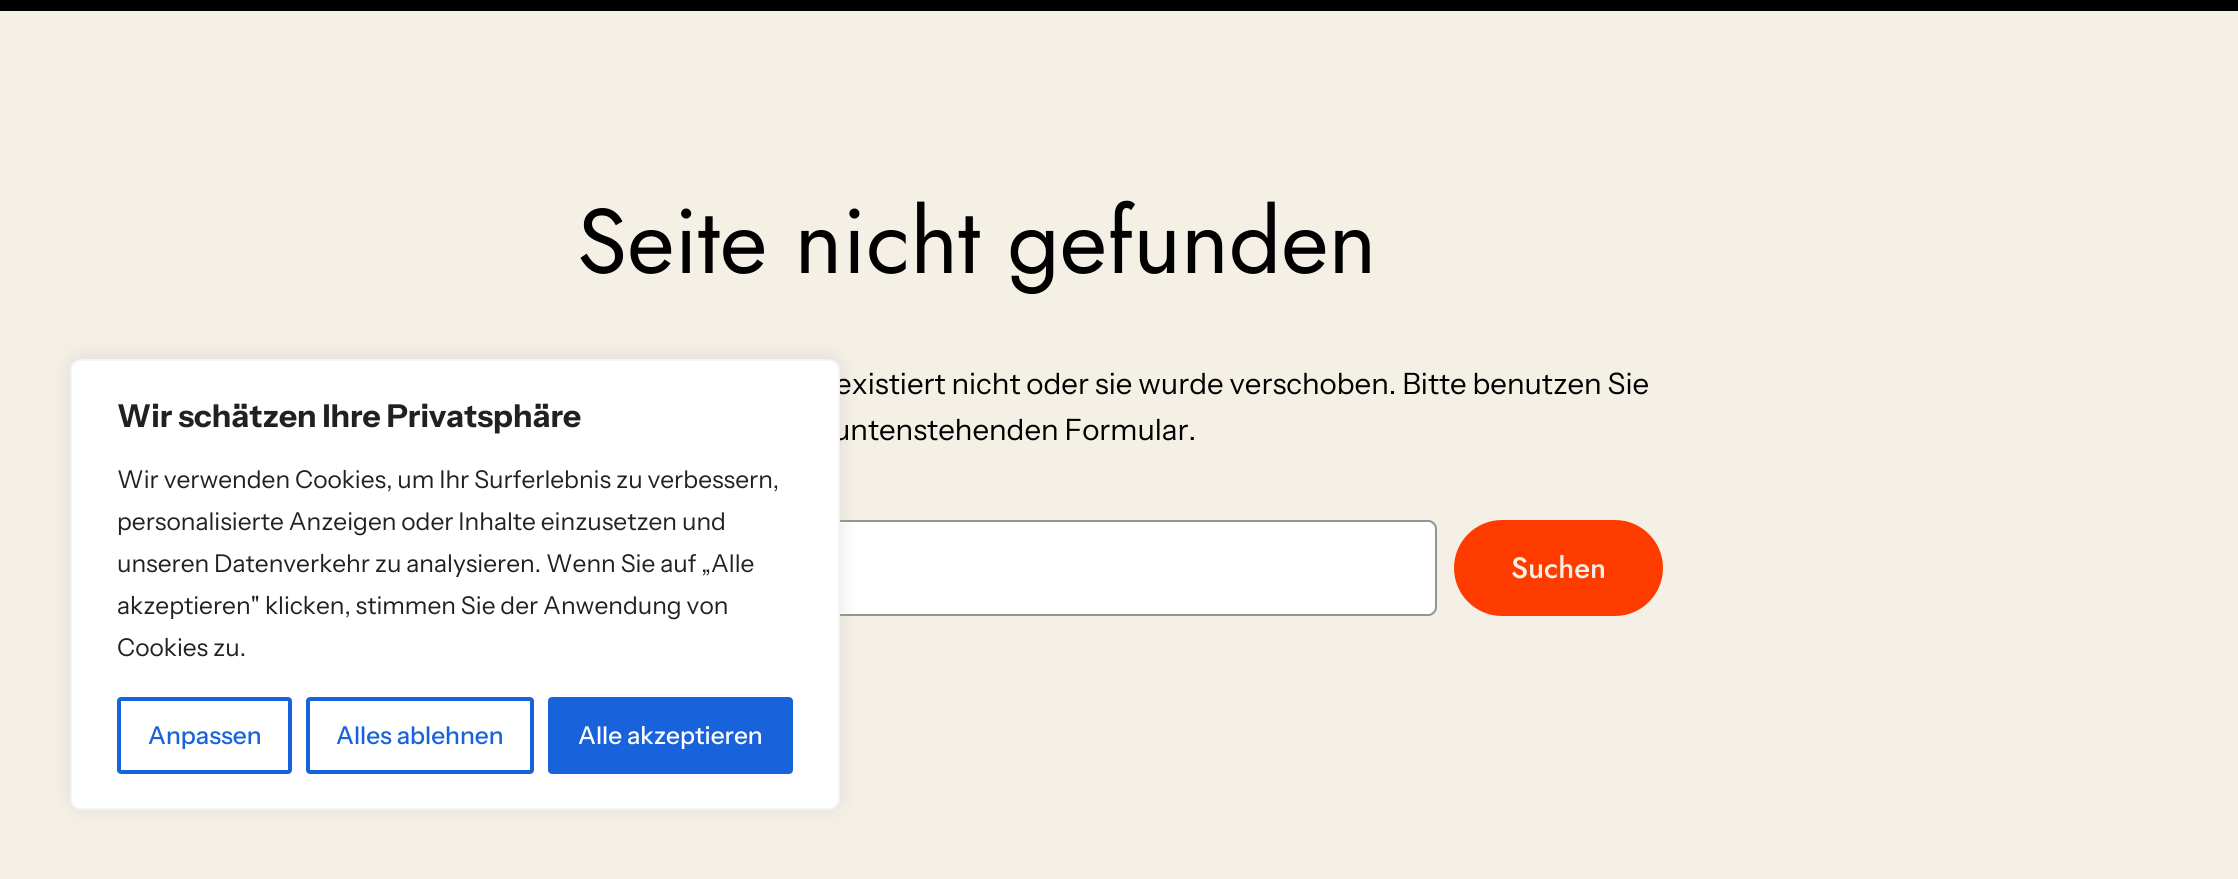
import math
import cairo


def round_path(ctx, x, y, w, h, r):
	ctx.new_sub_path()
	for i, (u, v) in enumerate([(x + w - r, y + h - r), (x + r, y + h - r), (x + r, y + r), (x + w - r, y + r)]):
		ctx.arc(u, v, r, i * math.pi / 2, (i + 1) * math.pi / 2)
	ctx.close_path()

def blur_box(ctx, x, y, w, h, r, blur, alpha):
	ctx.push_group_with_content(cairo.CONTENT_ALPHA)
	ctx.set_operator(cairo.OPERATOR_SOURCE)
	for i in range(15, -16, -2):
		e = blur * i / 6
		if min(w, h) + 2 * e > 0:
			ctx.set_source_rgba(0, 0, 0, alpha * math.erfc((i - 1) / 8.5) / 2)
			round_path(ctx, x - e, y - e, w + 2 * e, h + 2 * e, max(0, min(r + e + blur * .6, min(w, h) / 2 + e)))
			ctx.fill()
	ctx.mask(ctx.pop_group())

def draw(ctx):
	ctx.set_source_rgb(0.957, 0.941, 0.902)
	ctx.paint()
	ctx.set_source_rgb(1, 1, 1)
	round_path(ctx, 579, 521, 857, 94, 8)
	ctx.fill_preserve()
	ctx.set_source_rgb(0.58, 0.58, 0.58)
	ctx.stroke()
	ctx.set_source_rgb(0.675, 0.671, 0.671)
	blur_box(ctx, 70, 357, 770, 452, 11, 9, 0.3)
	ctx.select_font_face('Instrument Sans')
	ctx.set_font_size(29.4)
	ctx.set_source_rgb(0, 0, 0)
	ctx.move_to(835, 394)
	ctx.show_text('existiert nicht oder sie wurde verschoben. Bitte benutzen Sie')
	ctx.move_to(833, 440)
	ctx.show_text('untenstehenden Formular.')
	ctx.set_source_rgb(1, 1, 1)
	round_path(ctx, 71, 360, 768, 449, 10)
	ctx.fill_preserve()
	ctx.set_source_rgb(0.957, 0.957, 0.957)
	ctx.stroke()
	ctx.select_font_face('Instrument Sans', cairo.FONT_SLANT_NORMAL, cairo.FONT_WEIGHT_BOLD)
	ctx.set_font_size(31.5)
	ctx.set_source_rgb(0.129, 0.129, 0.129)
	ctx.move_to(117, 427)
	ctx.show_text('Wir schätzen Ihre Privatsphäre')
	ctx.select_font_face('Instrument Sans')
	ctx.set_font_size(24.5)
	for x, y, s in [
		(117, 488, 'Wir verwenden Cookies, um Ihr Surferlebnis zu verbessern,'),
		(117, 530, 'personalisierte Anzeigen oder Inhalte einzusetzen und'),
		(117, 572, 'unseren Datenverkehr zu analysieren. Wenn Sie auf „Alle'),
		(117, 614, 'akzeptieren" klicken, stimmen Sie der Anwendung von'),
		(117, 656, 'Cookies zu.'),
	]:
		ctx.move_to(x, y)
		ctx.show_text(s)
	round_path(ctx, 119, 699, 171, 73, 2)
	ctx.set_source_rgb(0.094, 0.388, 0.863)
	ctx.set_line_width(4)
	ctx.stroke()
	ctx.select_font_face('Instrument Sans Medium')
	ctx.move_to(148, 744)
	ctx.show_text('Anpassen')
	round_path(ctx, 308, 699, 224, 73, 2)
	ctx.stroke()
	ctx.move_to(336, 744)
	ctx.show_text('Alles ablehnen')
	round_path(ctx, 550, 699, 241, 73, 2)
	ctx.fill_preserve()
	ctx.stroke()
	ctx.set_source_rgb(1, 1, 1)
	ctx.move_to(578, 744)
	ctx.show_text('Alle akzeptieren')
	ctx.set_source_rgb(0, 0, 0)
	ctx.rectangle(0, 0, 2238, 11)
	ctx.fill()
	ctx.select_font_face('Jost')
	ctx.set_font_size(91.5)
	ctx.move_to(577, 273)
	ctx.show_text('Seite nicht gefunden')
	ctx.set_source_rgb(1, 0.235, 0)
	round_path(ctx, 1454, 520, 209, 96, 48)
	ctx.fill()
	ctx.select_font_face('Jost Medium')
	ctx.set_font_size(29.4)
	ctx.set_source_rgb(0.957, 0.941, 0.902)
	ctx.move_to(1511, 578)
	ctx.show_text('Suchen')


surface = cairo.ImageSurface(cairo.FORMAT_RGB24, 2238, 879)
ctx = cairo.Context(surface)
options = cairo.FontOptions()
options.set_hint_metrics(cairo.HINT_METRICS_OFF)
options.set_hint_style(cairo.HINT_STYLE_NONE)
ctx.set_font_options(options)
ctx.set_miter_limit(4)
draw(ctx)
surface.write_to_png('image.png')
